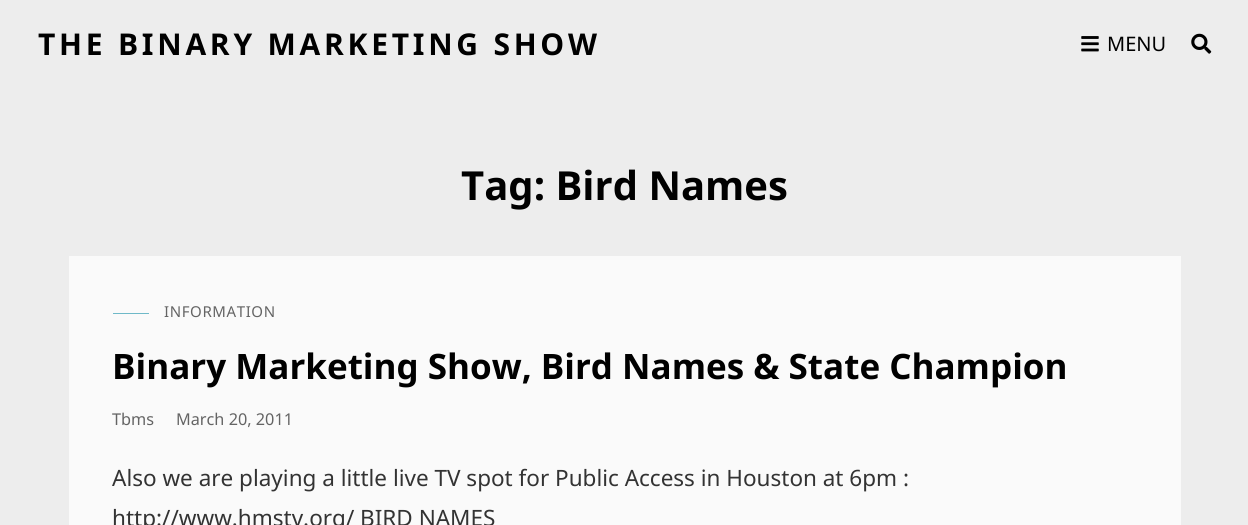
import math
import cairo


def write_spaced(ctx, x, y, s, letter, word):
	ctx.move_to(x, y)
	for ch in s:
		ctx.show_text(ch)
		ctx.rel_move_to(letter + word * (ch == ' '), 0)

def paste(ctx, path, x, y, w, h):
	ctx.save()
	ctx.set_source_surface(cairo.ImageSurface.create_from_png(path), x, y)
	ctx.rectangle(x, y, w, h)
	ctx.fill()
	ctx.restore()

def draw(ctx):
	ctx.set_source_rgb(0.929, 0.929, 0.929)
	ctx.paint()
	ctx.select_font_face('Noto Sans', cairo.FONT_SLANT_NORMAL, cairo.FONT_WEIGHT_BOLD)
	ctx.set_font_size(30)
	ctx.set_source_rgb(0, 0, 0)
	write_spaced(ctx, 38, 55, 'THE BINARY MARKETING SHOW', 3.75, 0)
	paste(ctx, 'media/1.png', 1081, 36, 18, 16)
	ctx.select_font_face('Noto Sans')
	ctx.set_font_size(20)
	ctx.move_to(1107, 51)
	ctx.show_text('MENU')
	paste(ctx, 'media/2.png', 1191, 33, 21, 21)
	ctx.select_font_face('Noto Sans', cairo.FONT_SLANT_NORMAL, cairo.FONT_WEIGHT_BOLD)
	ctx.set_font_size(40)
	ctx.move_to(461, 200)
	ctx.show_text('Tag: Bird Names')
	ctx.set_source_rgb(0.98, 0.98, 0.98)
	ctx.rectangle(69, 256, 1112, 269)
	ctx.fill()
	ctx.set_source_rgb(0.435, 0.725, 0.784)
	ctx.rectangle(113, 313, 36, 1)
	ctx.fill()
	ctx.select_font_face('Noto Sans')
	ctx.set_font_size(15)
	ctx.set_source_rgb(0.392, 0.392, 0.392)
	write_spaced(ctx, 164, 317, 'INFORMATION', 0.6, 0)
	ctx.select_font_face('Noto Sans', cairo.FONT_SLANT_NORMAL, cairo.FONT_WEIGHT_BOLD)
	ctx.set_font_size(35)
	ctx.set_source_rgb(0, 0, 0)
	ctx.move_to(112, 379)
	ctx.show_text('Binary Marketing Show, Bird Names & State Champion')
	ctx.select_font_face('Noto Sans')
	ctx.set_font_size(16.25)
	ctx.set_source_rgb(0.392, 0.392, 0.392)
	ctx.move_to(112, 425)
	ctx.show_text('Tbms')
	ctx.move_to(176, 425)
	ctx.show_text('March 20, 2011')
	ctx.set_font_size(22.5)
	ctx.set_source_rgb(0.2, 0.2, 0.2)
	ctx.move_to(112, 486)
	ctx.show_text('Also we are playing a little live TV spot for Public Access in Houston at 6pm :')
	ctx.move_to(112, 526)
	ctx.show_text('http://www.hmstv.org/ BIRD NAMES')


surface = cairo.ImageSurface(cairo.FORMAT_RGB24, 1248, 525)
ctx = cairo.Context(surface)
options = cairo.FontOptions()
options.set_hint_metrics(cairo.HINT_METRICS_OFF)
options.set_hint_style(cairo.HINT_STYLE_NONE)
ctx.set_font_options(options)
ctx.set_miter_limit(4)
draw(ctx)
surface.write_to_png('image.png')
